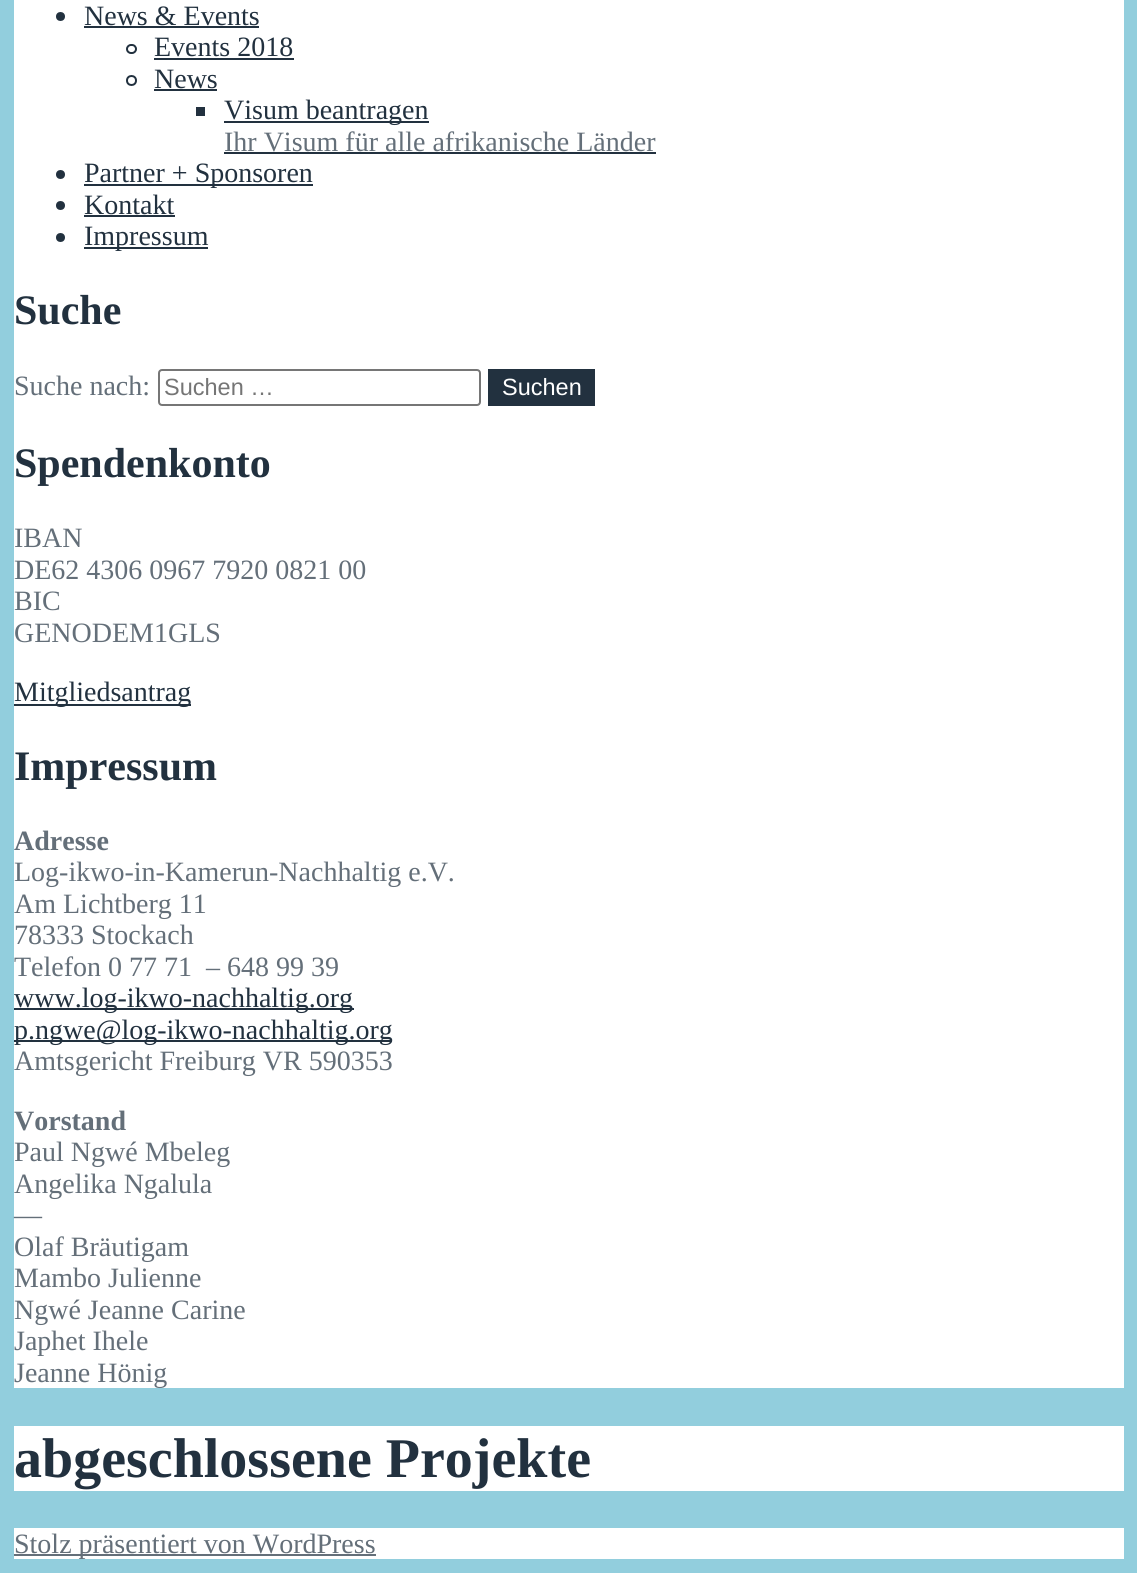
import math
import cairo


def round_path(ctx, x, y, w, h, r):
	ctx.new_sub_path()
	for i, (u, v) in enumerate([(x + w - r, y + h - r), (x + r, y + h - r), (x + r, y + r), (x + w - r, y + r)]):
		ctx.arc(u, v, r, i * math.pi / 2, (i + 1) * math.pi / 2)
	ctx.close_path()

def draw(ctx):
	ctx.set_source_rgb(0.573, 0.808, 0.867)
	ctx.paint()
	ctx.set_source_rgb(1, 1, 1)
	ctx.rectangle(14, 0, 1110, 1388)
	ctx.fill()
	ctx.set_source_rgb(0.133, 0.192, 0.247)
	ctx.arc(60.5, 16.5, 4.5, 0, 2 * math.pi)
	ctx.fill()
	ctx.select_font_face('Liberation Serif')
	ctx.set_font_size(28)
	ctx.move_to(84, 25)
	ctx.show_text('News & Events')
	ctx.rectangle(84, 26, 175, 2)
	ctx.fill()
	round_path(ctx, 127, 45, 9, 8, 4)
	ctx.stroke()
	ctx.move_to(154, 56)
	ctx.show_text('Events 2018')
	ctx.rectangle(154, 58, 140, 2)
	ctx.fill()
	ctx.arc(131.5, 80.5, 4.5, 0, 2 * math.pi)
	ctx.stroke()
	ctx.move_to(154, 88)
	ctx.show_text('News')
	ctx.rectangle(154, 89, 63, 2)
	ctx.rectangle(196, 107, 9, 9)
	ctx.rectangle(224, 121, 205, 2)
	ctx.fill()
	ctx.move_to(224, 119)
	ctx.show_text('Visum beantragen')
	ctx.set_source_rgb(0.392, 0.435, 0.475)
	ctx.move_to(224, 151)
	ctx.show_text('Ihr Visum für alle afrikanische Länder')
	ctx.set_source_rgb(0.133, 0.192, 0.247)
	ctx.rectangle(224, 152, 432, 2)
	ctx.fill()
	ctx.arc(60.5, 174.5, 4.5, 0, 2 * math.pi)
	ctx.fill()
	ctx.rectangle(84, 184, 229, 2)
	ctx.fill()
	ctx.move_to(84, 182)
	ctx.show_text('Partner + Sponsoren')
	ctx.new_path()
	ctx.arc(60.5, 205.5, 4.5, 0, 2 * math.pi)
	ctx.fill()
	ctx.move_to(84, 214)
	ctx.show_text('Kontakt')
	ctx.rectangle(84, 215, 91, 2)
	ctx.fill()
	ctx.arc(60.5, 237.5, 4.5, 0, 2 * math.pi)
	ctx.fill()
	ctx.rectangle(84, 247, 124, 2)
	ctx.fill()
	ctx.move_to(84, 245)
	ctx.show_text('Impressum')
	ctx.select_font_face('Liberation Serif', cairo.FONT_SLANT_NORMAL, cairo.FONT_WEIGHT_BOLD)
	ctx.set_font_size(42)
	ctx.move_to(14, 324)
	ctx.show_text('Suche')
	ctx.select_font_face('Liberation Serif')
	ctx.set_font_size(28)
	ctx.set_source_rgb(0.392, 0.435, 0.475)
	ctx.move_to(14, 395)
	ctx.show_text('Suche nach:')
	round_path(ctx, 159, 370, 321, 35, 3)
	ctx.set_source_rgb(0.463, 0.463, 0.463)
	ctx.stroke()
	ctx.select_font_face('Liberation Sans')
	ctx.set_font_size(23.5)
	ctx.set_source_rgb(0.459, 0.459, 0.459)
	ctx.move_to(164, 395)
	ctx.show_text('Suchen …')
	ctx.set_source_rgb(0.133, 0.192, 0.247)
	ctx.rectangle(488, 369, 107, 37)
	ctx.fill()
	ctx.set_source_rgb(1, 1, 1)
	ctx.move_to(502, 395)
	ctx.show_text('Suchen')
	ctx.select_font_face('Liberation Serif', cairo.FONT_SLANT_NORMAL, cairo.FONT_WEIGHT_BOLD)
	ctx.set_font_size(42)
	ctx.set_source_rgb(0.133, 0.192, 0.247)
	ctx.move_to(14, 477)
	ctx.show_text('Spendenkonto')
	ctx.select_font_face('Liberation Serif')
	ctx.set_font_size(28)
	ctx.set_source_rgb(0.392, 0.435, 0.475)
	for x, y, s in [
		(14, 547, 'IBAN'),
		(14, 579, 'DE62 4306 0967 7920 0821 00'),
		(14, 610, 'BIC'),
		(14, 642, 'GENODEM1GLS'),
	]:
		ctx.move_to(x, y)
		ctx.show_text(s)
	ctx.set_source_rgb(0.133, 0.192, 0.247)
	ctx.rectangle(14, 704, 177, 2)
	ctx.fill()
	ctx.move_to(14, 701)
	ctx.show_text('Mitgliedsantrag')
	ctx.select_font_face('Liberation Serif', cairo.FONT_SLANT_NORMAL, cairo.FONT_WEIGHT_BOLD)
	ctx.set_font_size(42)
	ctx.move_to(14, 780)
	ctx.show_text('Impressum')
	ctx.set_font_size(28)
	ctx.set_source_rgb(0.392, 0.435, 0.475)
	ctx.move_to(14, 850)
	ctx.show_text('Adresse')
	ctx.select_font_face('Liberation Serif')
	for x, y, s in [
		(14, 881, 'Log-ikwo-in-Kamerun-Nachhaltig e.V.'),
		(14, 913, 'Am Lichtberg 11'),
		(14, 944, '78333 Stockach'),
		(14, 976, 'Telefon 0 77 71  – 648 99 39'),
	]:
		ctx.move_to(x, y)
		ctx.show_text(s)
	ctx.set_source_rgb(0.133, 0.192, 0.247)
	ctx.rectangle(14, 1008, 340, 2)
	ctx.fill()
	ctx.move_to(14, 1007)
	ctx.show_text('www.log-ikwo-nachhaltig.org')
	ctx.rectangle(14, 1040, 378, 2)
	ctx.fill()
	ctx.move_to(14, 1039)
	ctx.show_text('p.ngwe@log-ikwo-nachhaltig.org')
	ctx.set_source_rgb(0.392, 0.435, 0.475)
	ctx.move_to(14, 1070)
	ctx.show_text('Amtsgericht Freiburg VR 590353')
	ctx.select_font_face('Liberation Serif', cairo.FONT_SLANT_NORMAL, cairo.FONT_WEIGHT_BOLD)
	ctx.move_to(14, 1130)
	ctx.show_text('Vorstand')
	ctx.select_font_face('Liberation Serif')
	for x, y, s in [
		(14, 1161, 'Paul Ngwé Mbeleg'),
		(14, 1193, 'Angelika Ngalula'),
		(14, 1224, '—'),
		(14, 1256, 'Olaf Bräutigam'),
		(14, 1287, 'Mambo Julienne'),
		(14, 1319, 'Ngwé Jeanne Carine'),
		(14, 1350, 'Japhet Ihele'),
		(14, 1382, 'Jeanne Hönig'),
	]:
		ctx.move_to(x, y)
		ctx.show_text(s)
	ctx.set_source_rgb(1, 1, 1)
	ctx.rectangle(14, 1426, 1110, 65)
	ctx.fill()
	ctx.select_font_face('Liberation Serif', cairo.FONT_SLANT_NORMAL, cairo.FONT_WEIGHT_BOLD)
	ctx.set_font_size(56)
	ctx.set_source_rgb(0.133, 0.192, 0.247)
	ctx.move_to(14, 1477)
	ctx.show_text('abgeschlossene Projekte')
	ctx.set_source_rgb(1, 1, 1)
	ctx.rectangle(14, 1528, 1110, 31)
	ctx.fill()
	ctx.set_source_rgb(0.392, 0.435, 0.475)
	ctx.rectangle(14, 1554, 362, 2)
	ctx.fill()
	ctx.select_font_face('Liberation Serif')
	ctx.set_font_size(28)
	ctx.move_to(14, 1553)
	ctx.show_text('Stolz präsentiert von WordPress')


surface = cairo.ImageSurface(cairo.FORMAT_RGB24, 1137, 1573)
ctx = cairo.Context(surface)
options = cairo.FontOptions()
options.set_hint_metrics(cairo.HINT_METRICS_OFF)
options.set_hint_style(cairo.HINT_STYLE_NONE)
ctx.set_font_options(options)
ctx.set_miter_limit(4)
draw(ctx)
surface.write_to_png('image.png')
